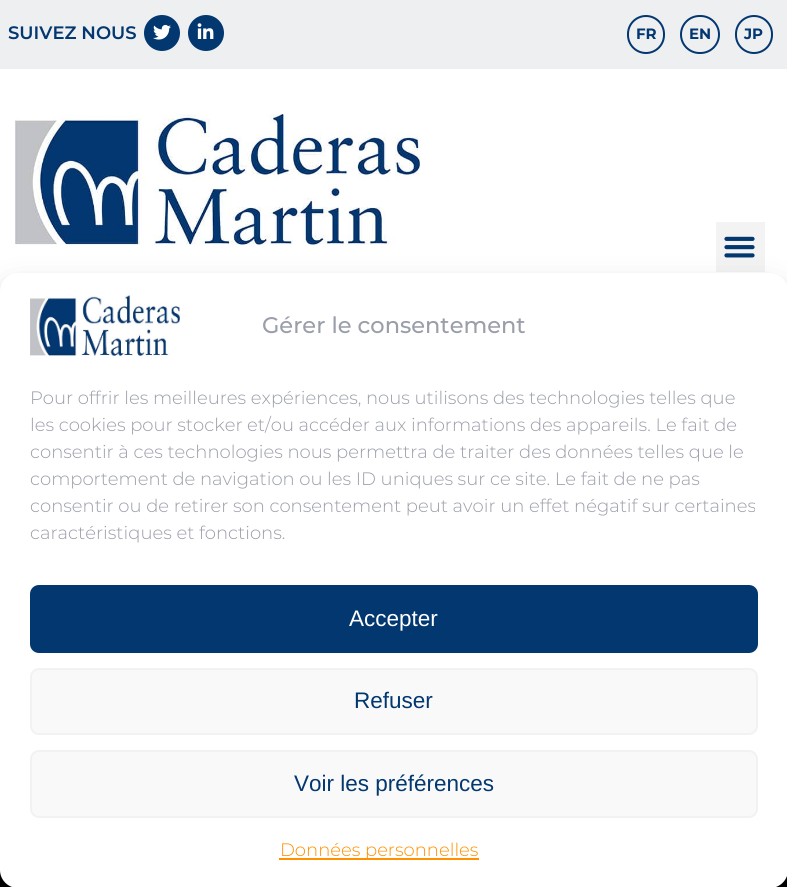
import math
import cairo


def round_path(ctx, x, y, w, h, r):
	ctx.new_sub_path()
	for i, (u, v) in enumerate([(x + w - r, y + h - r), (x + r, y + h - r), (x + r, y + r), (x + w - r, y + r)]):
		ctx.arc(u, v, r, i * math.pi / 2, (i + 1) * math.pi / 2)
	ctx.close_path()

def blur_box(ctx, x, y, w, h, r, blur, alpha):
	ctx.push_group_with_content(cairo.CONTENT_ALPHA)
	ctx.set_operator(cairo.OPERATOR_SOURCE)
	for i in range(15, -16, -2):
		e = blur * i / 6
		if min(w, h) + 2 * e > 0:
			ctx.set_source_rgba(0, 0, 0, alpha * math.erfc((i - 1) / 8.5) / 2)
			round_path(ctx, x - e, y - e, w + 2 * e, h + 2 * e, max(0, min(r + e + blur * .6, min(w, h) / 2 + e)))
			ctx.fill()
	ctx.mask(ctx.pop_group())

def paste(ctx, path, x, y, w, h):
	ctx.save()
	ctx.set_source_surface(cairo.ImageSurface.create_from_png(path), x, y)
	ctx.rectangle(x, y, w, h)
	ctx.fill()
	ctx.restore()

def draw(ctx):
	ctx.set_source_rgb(1, 1, 1)
	ctx.paint()
	ctx.set_source_rgb(0.933, 0.937, 0.945)
	ctx.rectangle(0, 0, 787, 69)
	ctx.fill()
	ctx.select_font_face('Montserrat SemiBold')
	ctx.set_font_size(18)
	ctx.set_source_rgb(0.008, 0.216, 0.439)
	ctx.move_to(8, 39)
	ctx.show_text('SUIVEZ NOUS')
	ctx.new_path()
	ctx.arc(162, 33, 18, 0, 2 * math.pi)
	ctx.fill()
	paste(ctx, 'media/1.png', 153, 24, 18, 16)
	ctx.arc(206, 33, 18, 0, 2 * math.pi)
	ctx.fill()
	paste(ctx, 'media/2.png', 197, 23, 17, 16)
	round_path(ctx, 628, 16, 36, 37, 18)
	ctx.stroke()
	ctx.select_font_face('Montserrat', cairo.FONT_SLANT_NORMAL, cairo.FONT_WEIGHT_BOLD)
	ctx.set_font_size(15)
	ctx.move_to(636, 39)
	ctx.show_text('FR')
	round_path(ctx, 681, 16, 38, 37, 18.5)
	ctx.stroke()
	ctx.move_to(689, 39)
	ctx.show_text('EN')
	round_path(ctx, 736, 16, 36, 37, 18)
	ctx.stroke()
	ctx.move_to(744, 39)
	ctx.show_text('JP')
	paste(ctx, 'media/3.png', 15, 114, 405, 131)
	ctx.set_source_rgb(0, 0, 0)
	ctx.rectangle(0, 870, 787, 17)
	ctx.fill()
	ctx.set_source_rgb(0, 0, 0)
	blur_box(ctx, 0, 282, 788, 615, 18, 4.5, 0.23)
	blur_box(ctx, 0, 288, 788, 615, 18, 15, 0.19)
	ctx.set_source_rgba(0, 0, 0, 0.05)
	ctx.rectangle(716, 222, 49, 50)
	ctx.fill()
	paste(ctx, 'media/4.png', 724, 236, 31, 22)
	ctx.set_source_rgb(1, 1, 1)
	round_path(ctx, 0, 273, 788, 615, 18)
	ctx.fill()
	paste(ctx, 'media/5.png', 30, 295, 150, 61)
	ctx.select_font_face('Montserrat Medium')
	ctx.set_font_size(22.5)
	ctx.set_source_rgb(0.604, 0.62, 0.663)
	ctx.move_to(262, 333)
	ctx.show_text('Gérer le consentement')
	ctx.select_font_face('Montserrat Light')
	ctx.set_font_size(18)
	for x, y, s in [
		(30, 404, 'Pour offrir les meilleures expériences, nous utilisons des technologies telles que'),
		(30, 431, 'les cookies pour stocker et/ou accéder aux informations des appareils. Le fait de'),
		(30, 458, 'consentir à ces technologies nous permettra de traiter des données telles que le'),
		(30, 485, 'comportement de navigation ou les ID uniques sur ce site. Le fait de ne pas'),
		(30, 512, 'consentir ou de retirer son consentement peut avoir un effet négatif sur certaines'),
		(30, 539, 'caractéristiques et fonctions.'),
	]:
		ctx.move_to(x, y)
		ctx.show_text(s)
	ctx.set_source_rgb(0.008, 0.216, 0.439)
	round_path(ctx, 31, 586, 726, 66, 8)
	ctx.fill_preserve()
	ctx.stroke()
	ctx.select_font_face('Liberation Sans')
	ctx.set_font_size(22.5)
	ctx.set_source_rgb(1, 1, 1)
	ctx.move_to(349, 626)
	ctx.show_text('Accepter')
	ctx.set_source_rgb(0.976, 0.976, 0.976)
	round_path(ctx, 31, 669, 726, 65, 8)
	ctx.fill_preserve()
	ctx.set_source_rgb(0.949, 0.949, 0.949)
	ctx.stroke()
	ctx.set_source_rgb(0.008, 0.216, 0.439)
	ctx.move_to(354, 708)
	ctx.show_text('Refuser')
	ctx.set_source_rgb(0.976, 0.976, 0.976)
	round_path(ctx, 31, 751, 726, 66, 8)
	ctx.fill_preserve()
	ctx.set_source_rgb(0.949, 0.949, 0.949)
	ctx.stroke()
	ctx.set_source_rgb(0.008, 0.216, 0.439)
	ctx.move_to(294, 791)
	ctx.show_text('Voir les préférences')
	ctx.set_source_rgb(1, 0.565, 0)
	ctx.rectangle(279, 858, 200, 2)
	ctx.fill()
	ctx.select_font_face('Montserrat Light')
	ctx.set_font_size(18)
	ctx.move_to(280, 856)
	ctx.show_text('Données personnelles')


surface = cairo.ImageSurface(cairo.FORMAT_RGB24, 787, 887)
ctx = cairo.Context(surface)
options = cairo.FontOptions()
options.set_hint_metrics(cairo.HINT_METRICS_OFF)
options.set_hint_style(cairo.HINT_STYLE_NONE)
ctx.set_font_options(options)
ctx.set_miter_limit(4)
draw(ctx)
surface.write_to_png('image.png')
